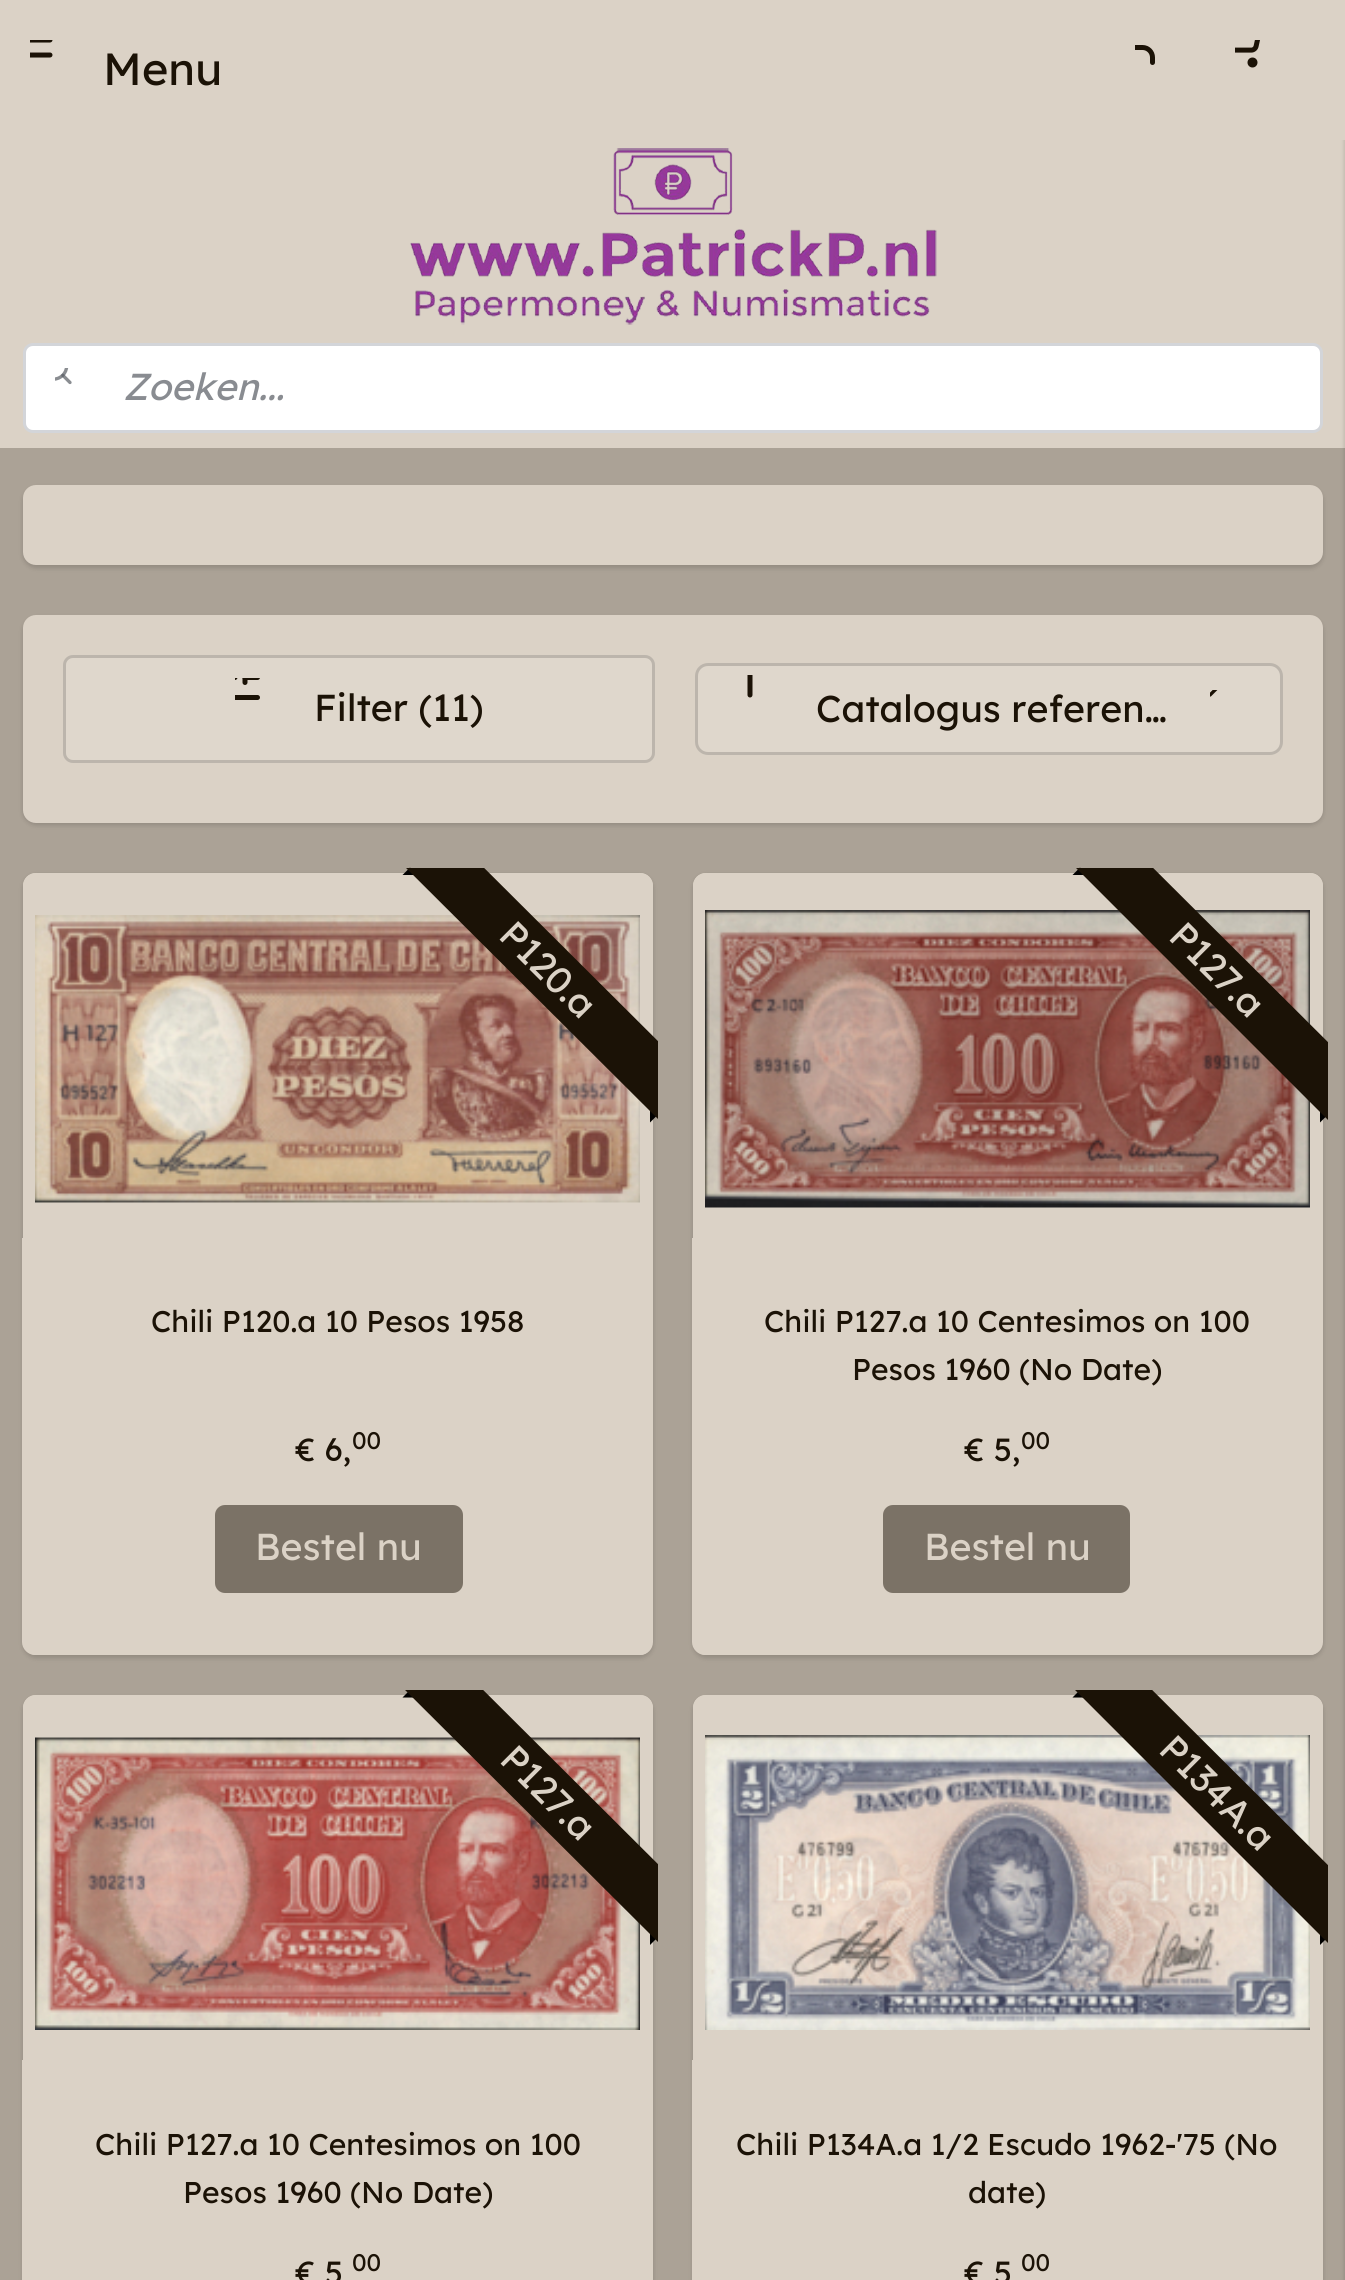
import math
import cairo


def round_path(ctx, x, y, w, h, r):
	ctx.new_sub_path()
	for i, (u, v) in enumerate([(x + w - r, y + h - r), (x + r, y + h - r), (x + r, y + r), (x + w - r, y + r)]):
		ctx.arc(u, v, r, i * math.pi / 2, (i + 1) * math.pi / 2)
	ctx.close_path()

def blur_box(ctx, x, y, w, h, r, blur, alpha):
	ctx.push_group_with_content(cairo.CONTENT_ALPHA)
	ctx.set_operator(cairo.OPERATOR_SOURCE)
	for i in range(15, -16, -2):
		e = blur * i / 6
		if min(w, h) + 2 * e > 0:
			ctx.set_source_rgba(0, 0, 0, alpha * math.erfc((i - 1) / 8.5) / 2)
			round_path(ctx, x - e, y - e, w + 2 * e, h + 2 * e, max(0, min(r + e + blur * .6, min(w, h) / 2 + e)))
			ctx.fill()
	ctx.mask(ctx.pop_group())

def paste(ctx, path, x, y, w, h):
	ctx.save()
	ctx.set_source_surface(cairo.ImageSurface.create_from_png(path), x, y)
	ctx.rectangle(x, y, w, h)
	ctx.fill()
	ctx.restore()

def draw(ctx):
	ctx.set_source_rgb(0.671, 0.635, 0.588)
	ctx.paint()
	ctx.set_source_rgb(0.859, 0.824, 0.776)
	ctx.rectangle(0, 140, 1345, 308)
	ctx.fill()
	ctx.set_source_rgb(0, 0, 0)
	blur_box(ctx, 1345, 3, 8, 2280, 0, 2.5, 0.2)
	ctx.set_source_rgb(0.859, 0.824, 0.776)
	ctx.rectangle(0, 0, 1345, 140)
	ctx.fill()
	paste(ctx, 'media/1.png', 30, 40, 23, 18)
	ctx.select_font_face('Lexend')
	ctx.set_font_size(45)
	ctx.set_source_rgb(0.106, 0.071, 0.024)
	ctx.move_to(103, 85)
	ctx.show_text('Menu')
	paste(ctx, 'media/2.png', 1135, 45, 20, 20)
	paste(ctx, 'media/3.png', 1235, 40, 25, 28)
	paste(ctx, 'media/4.png', 410, 148, 527, 177)
	ctx.set_source_rgb(1, 1, 1)
	round_path(ctx, 24.5, 344.5, 1297, 87, 8.5)
	ctx.fill_preserve()
	ctx.set_source_rgb(0.827, 0.835, 0.851)
	ctx.set_line_width(3)
	ctx.stroke()
	paste(ctx, 'media/5.png', 55, 368, 17, 17)
	ctx.select_font_face('Lexend', cairo.FONT_SLANT_ITALIC)
	ctx.set_font_size(37.5)
	ctx.set_source_rgb(0.537, 0.549, 0.569)
	ctx.move_to(123, 400)
	ctx.show_text('Zoeken...')
	ctx.set_source_rgb(0, 0, 0)
	blur_box(ctx, 23, 488, 1300, 80, 13, 2.5, 0.15)
	ctx.set_source_rgb(0.859, 0.824, 0.776)
	round_path(ctx, 24.5, 486.5, 1297, 77, 11.5)
	ctx.fill_preserve()
	ctx.stroke()
	ctx.set_source_rgb(0, 0, 0)
	blur_box(ctx, 23, 618, 1300, 207, 13, 2.5, 0.15)
	ctx.set_source_rgb(0.859, 0.824, 0.776)
	round_path(ctx, 24.5, 616.5, 1297, 205, 11.5)
	ctx.fill_preserve()
	ctx.stroke()
	ctx.set_source_rgb(0.875, 0.843, 0.8)
	round_path(ctx, 63, 655, 592, 108, 10)
	ctx.fill()
	round_path(ctx, 64.5, 656.5, 589, 105, 8.5)
	ctx.set_source_rgba(0, 0, 0, 0.16)
	ctx.stroke()
	paste(ctx, 'media/6.png', 235, 678, 25, 22)
	ctx.select_font_face('Lexend')
	ctx.set_source_rgb(0.106, 0.071, 0.024)
	ctx.move_to(314, 721)
	ctx.show_text('Filter (11)')
	ctx.set_source_rgb(0.875, 0.843, 0.8)
	round_path(ctx, 695, 663, 588, 92, 13)
	ctx.fill()
	round_path(ctx, 696.5, 664.5, 585, 89, 11.5)
	ctx.set_source_rgba(0, 0, 0, 0.16)
	ctx.stroke()
	paste(ctx, 'media/7.png', 747, 675, 6, 23)
	ctx.set_source_rgb(0.106, 0.071, 0.024)
	ctx.move_to(816, 722)
	ctx.show_text('Catalogus referen…')
	paste(ctx, 'media/8.png', 1210, 690, 8, 7)
	ctx.set_source_rgb(0, 0, 0)
	blur_box(ctx, 23, 875, 630, 783, 13, 2.5, 0.15)
	ctx.set_source_rgb(0.859, 0.824, 0.776)
	round_path(ctx, 23, 873, 630, 782, 13)
	ctx.fill()
	ctx.new_path()
	ctx.move_to(36, 874.5)
	ctx.line_to(640, 874.5)
	ctx.curve_to(646.5, 874.5, 651.5, 879.5, 651.5, 886)
	ctx.line_to(651.5, 1236.5)
	ctx.line_to(24.5, 1236.5)
	ctx.line_to(24.5, 886)
	ctx.curve_to(24.5, 879.5, 29.5, 874.5, 36, 874.5)
	ctx.close_path()
	ctx.stroke()
	paste(ctx, 'media/9.png', 35, 915, 605, 288)
	ctx.set_source_rgb(0, 0, 0)
	ctx.new_path()
	ctx.move_to(417.5, 875)
	ctx.line_to(402.5, 875)
	ctx.line_to(410, 867.5)
	ctx.close_path()
	ctx.fill()
	ctx.new_path()
	ctx.move_to(650, 1122.5)
	ctx.line_to(650, 1107.5)
	ctx.line_to(657.5, 1115)
	ctx.close_path()
	ctx.fill()
	ctx.save()
	ctx.rectangle(358, 868, 300, 300)
	ctx.clip()
	ctx.set_source_rgb(0.106, 0.071, 0.024)
	ctx.new_path()
	ctx.move_to(434, 818)
	ctx.line_to(700, 1083)
	ctx.line_to(661, 1122)
	ctx.line_to(395, 857)
	ctx.close_path()
	ctx.fill()
	ctx.restore()
	ctx.set_source_rgb(0.859, 0.824, 0.776)
	ctx.save()
	ctx.translate(497, 937)
	ctx.rotate(45 * math.pi / 180)
	ctx.move_to(0, 0)
	ctx.show_text('P120.a')
	ctx.restore()
	ctx.set_fill_rule(cairo.FILL_RULE_EVEN_ODD)
	ctx.new_path()
	ctx.move_to(22, 1238)
	ctx.line_to(652, 1238)
	ctx.line_to(652, 1642)
	ctx.curve_to(652, 1649, 647, 1655, 640, 1655)
	ctx.line_to(35, 1655)
	ctx.curve_to(28, 1655, 22, 1649, 22, 1642)
	ctx.close_path()
	ctx.move_to(25, 1238)
	ctx.line_to(650, 1238)
	ctx.line_to(650, 1642)
	ctx.curve_to(650, 1648, 646, 1652, 640, 1652)
	ctx.line_to(35, 1652)
	ctx.curve_to(29, 1652, 25, 1648, 25, 1642)
	ctx.close_path()
	ctx.fill()
	ctx.set_font_size(30)
	ctx.set_source_rgb(0.106, 0.071, 0.024)
	ctx.move_to(151, 1332)
	ctx.show_text('Chili P120.a 10 Pesos 1958')
	ctx.set_font_size(32)
	ctx.move_to(295, 1461)
	ctx.show_text('€ 6,')
	ctx.set_font_size(24)
	ctx.move_to(352, 1449)
	ctx.show_text('00')
	ctx.set_source_rgb(0.482, 0.447, 0.4)
	round_path(ctx, 215, 1505, 248, 88, 10)
	ctx.fill()
	ctx.set_font_size(37.5)
	ctx.set_source_rgb(0.859, 0.824, 0.776)
	ctx.move_to(255, 1560)
	ctx.show_text('Bestel nu')
	ctx.set_source_rgb(0, 0, 0)
	blur_box(ctx, 693, 875, 630, 783, 13, 2.5, 0.15)
	ctx.set_source_rgb(0.859, 0.824, 0.776)
	round_path(ctx, 693, 873, 630, 782, 13)
	ctx.fill()
	ctx.new_path()
	ctx.move_to(706, 874.5)
	ctx.line_to(1310, 874.5)
	ctx.curve_to(1316.5, 874.5, 1321.5, 879.5, 1321.5, 886)
	ctx.line_to(1321.5, 1236.5)
	ctx.line_to(694.5, 1236.5)
	ctx.line_to(694.5, 886)
	ctx.curve_to(694.5, 879.5, 699.5, 874.5, 706, 874.5)
	ctx.close_path()
	ctx.stroke()
	paste(ctx, 'media/10.png', 705, 910, 605, 298)
	ctx.set_source_rgb(0, 0, 0)
	ctx.set_fill_rule(cairo.FILL_RULE_WINDING)
	ctx.new_path()
	ctx.move_to(1087.5, 875)
	ctx.line_to(1072.5, 875)
	ctx.line_to(1080, 867.5)
	ctx.close_path()
	ctx.fill()
	ctx.new_path()
	ctx.move_to(1320, 1122.5)
	ctx.line_to(1320, 1107.5)
	ctx.line_to(1327.5, 1115)
	ctx.close_path()
	ctx.fill()
	ctx.save()
	ctx.rectangle(1028, 868, 300, 300)
	ctx.clip()
	ctx.set_source_rgb(0.106, 0.071, 0.024)
	ctx.new_path()
	ctx.move_to(1103, 818)
	ctx.line_to(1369, 1083)
	ctx.line_to(1330, 1122)
	ctx.line_to(1065, 857)
	ctx.close_path()
	ctx.fill()
	ctx.restore()
	ctx.set_source_rgb(0.859, 0.824, 0.776)
	ctx.save()
	ctx.translate(1167, 938)
	ctx.rotate(45 * math.pi / 180)
	ctx.move_to(0, 0)
	ctx.show_text('P127.a')
	ctx.restore()
	ctx.set_fill_rule(cairo.FILL_RULE_EVEN_ODD)
	ctx.new_path()
	ctx.move_to(692, 1238)
	ctx.line_to(1322, 1238)
	ctx.line_to(1322, 1642)
	ctx.curve_to(1322, 1649, 1317, 1655, 1310, 1655)
	ctx.line_to(705, 1655)
	ctx.curve_to(698, 1655, 692, 1649, 692, 1642)
	ctx.close_path()
	ctx.move_to(695, 1238)
	ctx.line_to(1320, 1238)
	ctx.line_to(1320, 1642)
	ctx.curve_to(1320, 1648, 1316, 1652, 1310, 1652)
	ctx.line_to(705, 1652)
	ctx.curve_to(699, 1652, 695, 1648, 695, 1642)
	ctx.close_path()
	ctx.fill()
	ctx.set_font_size(30)
	ctx.set_source_rgb(0.106, 0.071, 0.024)
	ctx.move_to(764, 1332)
	ctx.show_text('Chili P127.a 10 Centesimos on 100')
	ctx.move_to(852, 1380)
	ctx.show_text('Pesos 1960 (No Date)')
	ctx.set_font_size(32)
	ctx.move_to(964, 1461)
	ctx.show_text('€ 5,')
	ctx.set_font_size(24)
	ctx.move_to(1021, 1449)
	ctx.show_text('00')
	ctx.set_source_rgb(0.482, 0.447, 0.4)
	round_path(ctx, 883, 1505, 247, 88, 10)
	ctx.fill()
	ctx.set_font_size(37.5)
	ctx.set_source_rgb(0.859, 0.824, 0.776)
	ctx.move_to(924, 1560)
	ctx.show_text('Bestel nu')
	ctx.set_source_rgb(0, 0, 0)
	blur_box(ctx, 23, 1698, 630, 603, 13, 2.5, 0.15)
	ctx.set_source_rgb(0.859, 0.824, 0.776)
	round_path(ctx, 23, 1695, 630, 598, 13)
	ctx.fill()
	ctx.new_path()
	ctx.move_to(36, 1696.5)
	ctx.line_to(640, 1696.5)
	ctx.curve_to(646.5, 1696.5, 651.5, 1701.5, 651.5, 1708)
	ctx.line_to(651.5, 2058.5)
	ctx.line_to(24.5, 2058.5)
	ctx.line_to(24.5, 1708)
	ctx.curve_to(24.5, 1701.5, 29.5, 1696.5, 36, 1696.5)
	ctx.close_path()
	ctx.stroke()
	paste(ctx, 'media/11.png', 35, 1737, 605, 293)
	ctx.set_source_rgb(0, 0, 0)
	ctx.set_fill_rule(cairo.FILL_RULE_WINDING)
	ctx.new_path()
	ctx.move_to(417.5, 1697.5)
	ctx.line_to(402.5, 1697.5)
	ctx.line_to(410, 1690)
	ctx.close_path()
	ctx.fill()
	ctx.new_path()
	ctx.move_to(650, 1945)
	ctx.line_to(650, 1930)
	ctx.line_to(657.5, 1937.5)
	ctx.close_path()
	ctx.fill()
	ctx.save()
	ctx.rectangle(358, 1690, 300, 300)
	ctx.clip()
	ctx.set_source_rgb(0.106, 0.071, 0.024)
	ctx.new_path()
	ctx.move_to(434, 1641)
	ctx.line_to(700, 1906)
	ctx.line_to(661, 1945)
	ctx.line_to(395, 1680)
	ctx.close_path()
	ctx.fill()
	ctx.restore()
	ctx.set_source_rgb(0.859, 0.824, 0.776)
	ctx.save()
	ctx.translate(498, 1761)
	ctx.rotate(45 * math.pi / 180)
	ctx.move_to(0, 0)
	ctx.show_text('P127.a')
	ctx.restore()
	ctx.set_fill_rule(cairo.FILL_RULE_EVEN_ODD)
	ctx.new_path()
	ctx.move_to(22, 2060)
	ctx.line_to(652, 2060)
	ctx.line_to(652, 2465)
	ctx.curve_to(652, 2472, 647, 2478, 640, 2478)
	ctx.line_to(35, 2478)
	ctx.curve_to(28, 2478, 22, 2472, 22, 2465)
	ctx.close_path()
	ctx.move_to(25, 2060)
	ctx.line_to(650, 2060)
	ctx.line_to(650, 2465)
	ctx.curve_to(650, 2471, 646, 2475, 640, 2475)
	ctx.line_to(35, 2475)
	ctx.curve_to(29, 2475, 25, 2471, 25, 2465)
	ctx.close_path()
	ctx.fill()
	ctx.set_font_size(30)
	ctx.set_source_rgb(0.106, 0.071, 0.024)
	ctx.move_to(95, 2155)
	ctx.show_text('Chili P127.a 10 Centesimos on 100')
	ctx.move_to(183, 2203)
	ctx.show_text('Pesos 1960 (No Date)')
	ctx.set_font_size(32)
	ctx.move_to(295, 2284)
	ctx.show_text('€ 5')
	ctx.set_font_size(24)
	ctx.move_to(352, 2271)
	ctx.show_text('00')
	ctx.set_source_rgb(0, 0, 0)
	blur_box(ctx, 693, 1698, 630, 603, 13, 2.5, 0.15)
	ctx.set_source_rgb(0.859, 0.824, 0.776)
	round_path(ctx, 693, 1695, 630, 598, 13)
	ctx.fill()
	ctx.new_path()
	ctx.move_to(706, 1696.5)
	ctx.line_to(1310, 1696.5)
	ctx.curve_to(1316.5, 1696.5, 1321.5, 1701.5, 1321.5, 1708)
	ctx.line_to(1321.5, 2058.5)
	ctx.line_to(694.5, 2058.5)
	ctx.line_to(694.5, 1708)
	ctx.curve_to(694.5, 1701.5, 699.5, 1696.5, 706, 1696.5)
	ctx.close_path()
	ctx.stroke()
	paste(ctx, 'media/12.png', 705, 1735, 605, 295)
	ctx.set_source_rgb(0, 0, 0)
	ctx.set_fill_rule(cairo.FILL_RULE_WINDING)
	ctx.new_path()
	ctx.move_to(1087.5, 1697.5)
	ctx.line_to(1072.5, 1697.5)
	ctx.line_to(1080, 1690)
	ctx.close_path()
	ctx.fill()
	ctx.new_path()
	ctx.move_to(1320, 1945)
	ctx.line_to(1320, 1930)
	ctx.line_to(1327.5, 1937.5)
	ctx.close_path()
	ctx.fill()
	ctx.save()
	ctx.rectangle(1028, 1690, 300, 300)
	ctx.clip()
	ctx.set_source_rgb(0.106, 0.071, 0.024)
	ctx.new_path()
	ctx.move_to(1103, 1641)
	ctx.line_to(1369, 1906)
	ctx.line_to(1330, 1945)
	ctx.line_to(1065, 1680)
	ctx.close_path()
	ctx.fill()
	ctx.restore()
	ctx.set_font_size(37.5)
	ctx.set_source_rgb(0.859, 0.824, 0.776)
	ctx.save()
	ctx.translate(1157, 1751)
	ctx.rotate(45 * math.pi / 180)
	ctx.move_to(0, 0)
	ctx.show_text('P134A.a')
	ctx.restore()
	ctx.set_fill_rule(cairo.FILL_RULE_EVEN_ODD)
	ctx.new_path()
	ctx.move_to(692, 2060)
	ctx.line_to(1322, 2060)
	ctx.line_to(1322, 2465)
	ctx.curve_to(1322, 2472, 1317, 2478, 1310, 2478)
	ctx.line_to(705, 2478)
	ctx.curve_to(698, 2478, 692, 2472, 692, 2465)
	ctx.close_path()
	ctx.move_to(695, 2060)
	ctx.line_to(1320, 2060)
	ctx.line_to(1320, 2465)
	ctx.curve_to(1320, 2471, 1316, 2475, 1310, 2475)
	ctx.line_to(705, 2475)
	ctx.curve_to(699, 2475, 695, 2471, 695, 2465)
	ctx.close_path()
	ctx.fill()
	ctx.set_font_size(30)
	ctx.set_source_rgb(0.106, 0.071, 0.024)
	ctx.move_to(736, 2155)
	ctx.show_text('Chili P134A.a 1/2 Escudo 1962-\'75 (No')
	ctx.move_to(968, 2203)
	ctx.show_text('date)')
	ctx.set_font_size(32)
	ctx.move_to(964, 2284)
	ctx.show_text('€ 5')
	ctx.set_font_size(24)
	ctx.move_to(1021, 2271)
	ctx.show_text('00')


surface = cairo.ImageSurface(cairo.FORMAT_RGB24, 1345, 2280)
ctx = cairo.Context(surface)
options = cairo.FontOptions()
options.set_hint_metrics(cairo.HINT_METRICS_OFF)
options.set_hint_style(cairo.HINT_STYLE_NONE)
ctx.set_font_options(options)
ctx.set_miter_limit(4)
draw(ctx)
surface.write_to_png('image.png')
